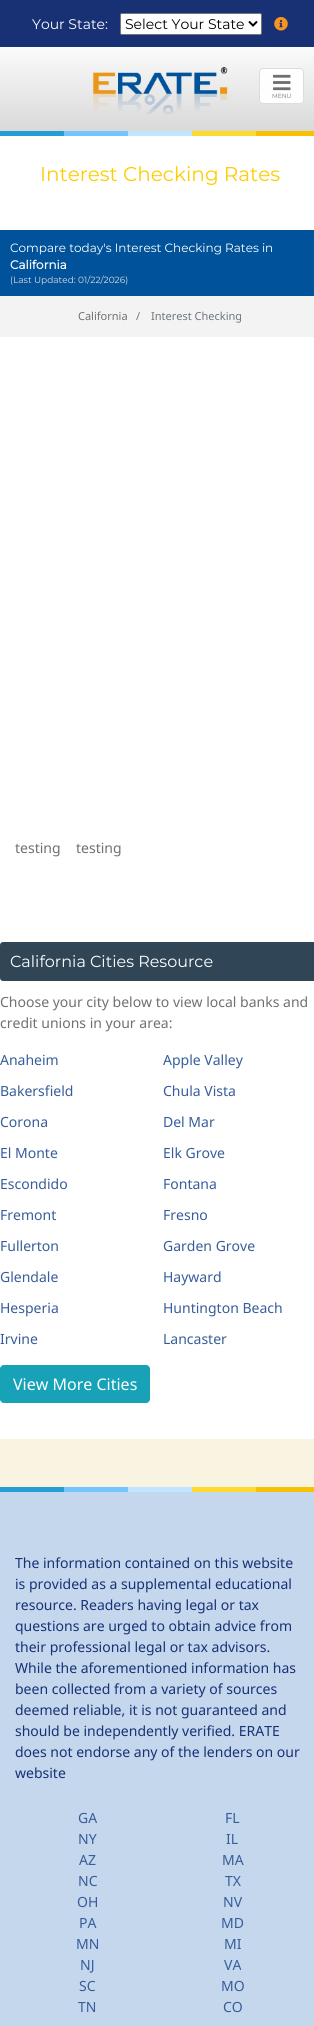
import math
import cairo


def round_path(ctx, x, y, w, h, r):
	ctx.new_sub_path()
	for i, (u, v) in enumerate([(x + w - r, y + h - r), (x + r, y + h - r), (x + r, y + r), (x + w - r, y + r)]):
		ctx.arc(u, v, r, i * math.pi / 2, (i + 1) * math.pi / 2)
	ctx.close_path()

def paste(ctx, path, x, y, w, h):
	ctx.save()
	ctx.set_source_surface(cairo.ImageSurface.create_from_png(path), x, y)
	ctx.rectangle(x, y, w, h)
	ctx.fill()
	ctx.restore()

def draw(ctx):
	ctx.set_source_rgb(1, 1, 1)
	ctx.paint()
	ctx.set_source_rgb(0.094, 0.192, 0.455)
	ctx.rectangle(0, 0, 314, 47)
	ctx.fill()
	ctx.select_font_face('Montserrat Thin')
	ctx.set_font_size(14)
	ctx.set_source_rgb(1, 1, 1)
	ctx.move_to(32, 29)
	ctx.show_text('Your State:')
	round_path(ctx, 120.5, 13.5, 141, 21, 1.5)
	ctx.fill_preserve()
	ctx.set_source_rgb(0.463, 0.463, 0.463)
	ctx.set_line_width(1)
	ctx.stroke()
	ctx.new_path()
	ctx.move_to(249, 21.5)
	ctx.line_to(253, 25.5)
	ctx.line_to(257, 21.5)
	ctx.set_source_rgb(0, 0, 0)
	ctx.set_line_width(2)
	ctx.stroke()
	ctx.move_to(125, 29)
	ctx.show_text('Select Your State')
	paste(ctx, 'media/1.png', 274, 17, 14, 14)
	gradient = cairo.LinearGradient(160, 47, 160, 131)
	gradient.add_color_stop_rgba(0, 0.984, 0.984, 0.984, 1)
	gradient.add_color_stop_rgba(1, 0.851, 0.851, 0.851, 1)
	ctx.set_source(gradient)
	ctx.rectangle(0, 47, 314, 84)
	ctx.fill()
	paste(ctx, 'media/2.png', 92, 67, 136, 48)
	ctx.set_source_rgb(0.996, 0.996, 0.996)
	round_path(ctx, 259.5, 68.5, 44, 35, 3.5)
	ctx.fill_preserve()
	ctx.set_source_rgb(0.867, 0.867, 0.867)
	ctx.set_line_width(1)
	ctx.stroke()
	paste(ctx, 'media/3.png', 273, 74, 18, 17)
	ctx.set_font_size(6)
	ctx.set_source_rgb(0.439, 0.439, 0.439)
	ctx.move_to(272, 98)
	ctx.show_text('MENU')
	paste(ctx, 'media/4.png', 0, 131, 314, 5)
	ctx.set_font_size(20)
	ctx.set_source_rgb(1, 0.8, 0)
	ctx.move_to(40, 181)
	ctx.show_text('Interest Checking Rates')
	ctx.set_source_rgb(0, 0.322, 0.608)
	ctx.rectangle(0, 230, 314, 66)
	ctx.fill()
	ctx.set_font_size(12)
	ctx.set_source_rgb(1, 1, 1)
	ctx.move_to(10, 252)
	ctx.show_text('Compare today\'s Interest Checking Rates in')
	ctx.select_font_face('Montserrat', cairo.FONT_SLANT_NORMAL, cairo.FONT_WEIGHT_BOLD)
	ctx.move_to(10, 269)
	ctx.show_text('California')
	ctx.select_font_face('Montserrat Thin')
	ctx.set_font_size(9)
	ctx.set_source_rgb(0.867, 0.867, 0.867)
	ctx.move_to(10, 283)
	ctx.show_text('(Last Updated: 01/22/2026)')
	ctx.set_source_rgb(0.953, 0.953, 0.953)
	ctx.rectangle(0, 296, 314, 41)
	ctx.fill()
	ctx.select_font_face('Noto Sans')
	ctx.set_font_size(11)
	ctx.set_source_rgb(0.439, 0.439, 0.439)
	ctx.move_to(78, 320)
	ctx.show_text('California')
	ctx.set_source_rgb(0.424, 0.459, 0.49)
	ctx.move_to(136, 320)
	ctx.show_text('/')
	ctx.move_to(151, 320)
	ctx.show_text('Interest Checking')
	ctx.set_font_size(14)
	ctx.set_source_rgb(0.439, 0.439, 0.439)
	ctx.move_to(15, 853)
	ctx.show_text('testing')
	ctx.move_to(76, 853)
	ctx.show_text('testing')
	ctx.set_source_rgb(0.188, 0.275, 0.337)
	round_path(ctx, 0, 942, 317, 39, 3)
	ctx.fill()
	ctx.select_font_face('Montserrat Thin')
	ctx.set_font_size(16)
	ctx.set_source_rgb(1, 1, 1)
	ctx.move_to(10, 967)
	ctx.show_text('California Cities Resource')
	ctx.select_font_face('Noto Sans')
	ctx.set_font_size(14)
	ctx.set_source_rgb(0.439, 0.439, 0.439)
	ctx.move_to(0, 1007)
	ctx.show_text('Choose your city below to view local banks and')
	ctx.move_to(0, 1028)
	ctx.show_text('credit unions in your area:')
	ctx.set_source_rgb(0.216, 0.365, 0.604)
	for x, y, s in [
		(0, 1065, 'Anaheim'),
		(163, 1065, 'Apple Valley'),
		(0, 1096, 'Bakersfield'),
		(163, 1096, 'Chula Vista'),
		(0, 1127, 'Corona'),
		(163, 1127, 'Del Mar'),
		(0, 1158, 'El Monte'),
		(163, 1158, 'Elk Grove'),
		(0, 1189, 'Escondido'),
		(163, 1189, 'Fontana'),
		(0, 1220, 'Fremont'),
		(163, 1220, 'Fresno'),
		(0, 1251, 'Fullerton'),
		(163, 1251, 'Garden Grove'),
		(0, 1282, 'Glendale'),
		(163, 1282, 'Hayward'),
		(0, 1313, 'Hesperia'),
		(163, 1313, 'Huntington Beach'),
		(0, 1344, 'Irvine'),
		(163, 1344, 'Lancaster'),
	]:
		ctx.move_to(x, y)
		ctx.show_text(s)
	ctx.set_source_rgb(0.09, 0.635, 0.722)
	round_path(ctx, 0.5, 1365.5, 149, 37, 3.5)
	ctx.fill_preserve()
	ctx.stroke()
	ctx.set_font_size(16)
	ctx.set_source_rgb(1, 1, 1)
	ctx.move_to(13, 1390)
	ctx.show_text('View More Cities')
	ctx.set_source_rgb(0.969, 0.957, 0.882)
	ctx.rectangle(0, 1439, 314, 48)
	ctx.fill()
	paste(ctx, 'media/4.png', 0, 1487, 314, 5)
	ctx.set_source_rgb(0.769, 0.843, 0.929)
	ctx.rectangle(0, 1492, 314, 534)
	ctx.fill()
	ctx.set_font_size(14)
	ctx.set_source_rgb(0.094, 0.192, 0.455)
	for x, y, s in [
		(15, 1568, 'The information contained on this website'),
		(15, 1589, 'is provided as a supplemental educational'),
		(15, 1610, 'resource. Readers having legal or tax'),
		(15, 1631, 'questions are urged to obtain advice from'),
		(15, 1652, 'their professional legal or tax advisors.'),
		(15, 1673, 'While the aforementioned information has'),
		(15, 1694, 'been collected from a variety of sources'),
		(15, 1715, 'deemed reliable, it is not guaranteed and'),
		(15, 1736, 'should be independently verified. ERATE'),
		(15, 1757, 'does not endorse any of the lenders on our'),
		(15, 1778, 'website'),
	]:
		ctx.move_to(x, y)
		ctx.show_text(s)
	ctx.set_source_rgb(0.216, 0.365, 0.604)
	for x, y, s in [
		(78, 1823, 'GA'),
		(225, 1823, 'FL'),
		(78, 1844, 'NY'),
		(226, 1844, 'IL'),
		(79, 1865, 'AZ'),
		(222, 1865, 'MA'),
		(78, 1886, 'NC'),
		(225, 1886, 'TX'),
		(77, 1907, 'OH'),
		(223, 1907, 'NV'),
		(79, 1928, 'PA'),
		(221, 1928, 'MD'),
		(76, 1949, 'MN'),
		(224, 1949, 'MI'),
		(80, 1970, 'NJ'),
		(224, 1970, 'VA'),
		(79, 1991, 'SC'),
		(221, 1991, 'MO'),
		(78, 2012, 'TN'),
		(223, 2012, 'CO'),
	]:
		ctx.move_to(x, y)
		ctx.show_text(s)


surface = cairo.ImageSurface(cairo.FORMAT_RGB24, 314, 2026)
ctx = cairo.Context(surface)
options = cairo.FontOptions()
options.set_hint_metrics(cairo.HINT_METRICS_OFF)
options.set_hint_style(cairo.HINT_STYLE_NONE)
ctx.set_font_options(options)
ctx.set_miter_limit(4)
draw(ctx)
surface.write_to_png('image.png')
